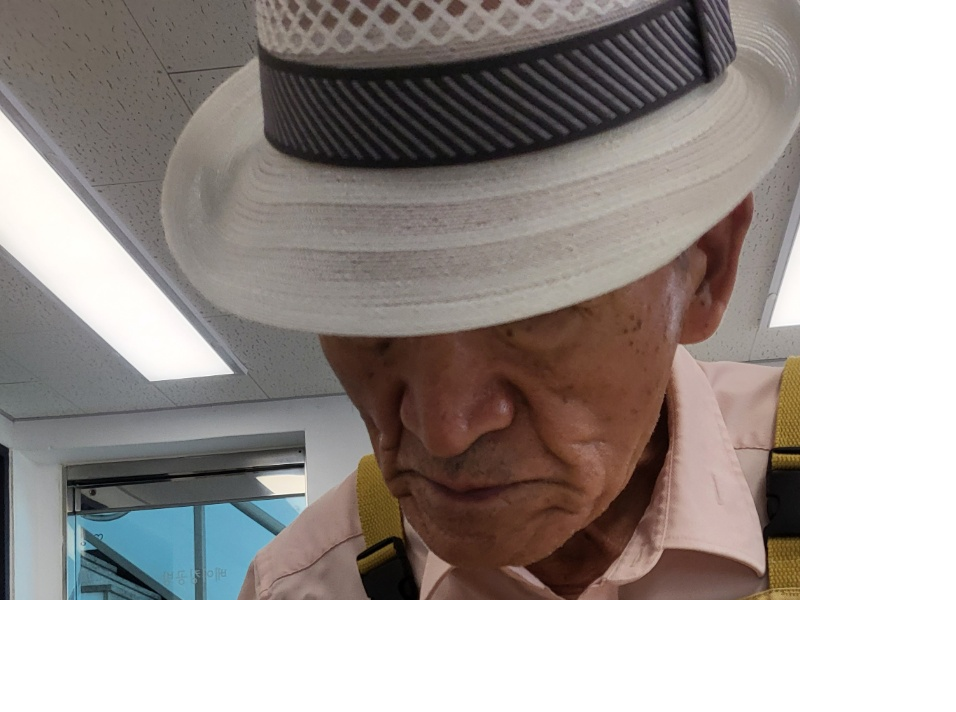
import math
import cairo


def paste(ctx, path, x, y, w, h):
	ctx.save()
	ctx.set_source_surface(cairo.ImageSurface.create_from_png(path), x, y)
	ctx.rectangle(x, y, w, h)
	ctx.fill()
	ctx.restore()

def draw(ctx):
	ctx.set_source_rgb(1, 1, 1)
	ctx.paint()
	paste(ctx, 'media/1.png', 0, 0, 800, 600)


surface = cairo.ImageSurface(cairo.FORMAT_RGB24, 956, 712)
ctx = cairo.Context(surface)
options = cairo.FontOptions()
options.set_hint_metrics(cairo.HINT_METRICS_OFF)
options.set_hint_style(cairo.HINT_STYLE_NONE)
ctx.set_font_options(options)
ctx.set_miter_limit(4)
draw(ctx)
surface.write_to_png('image.png')
